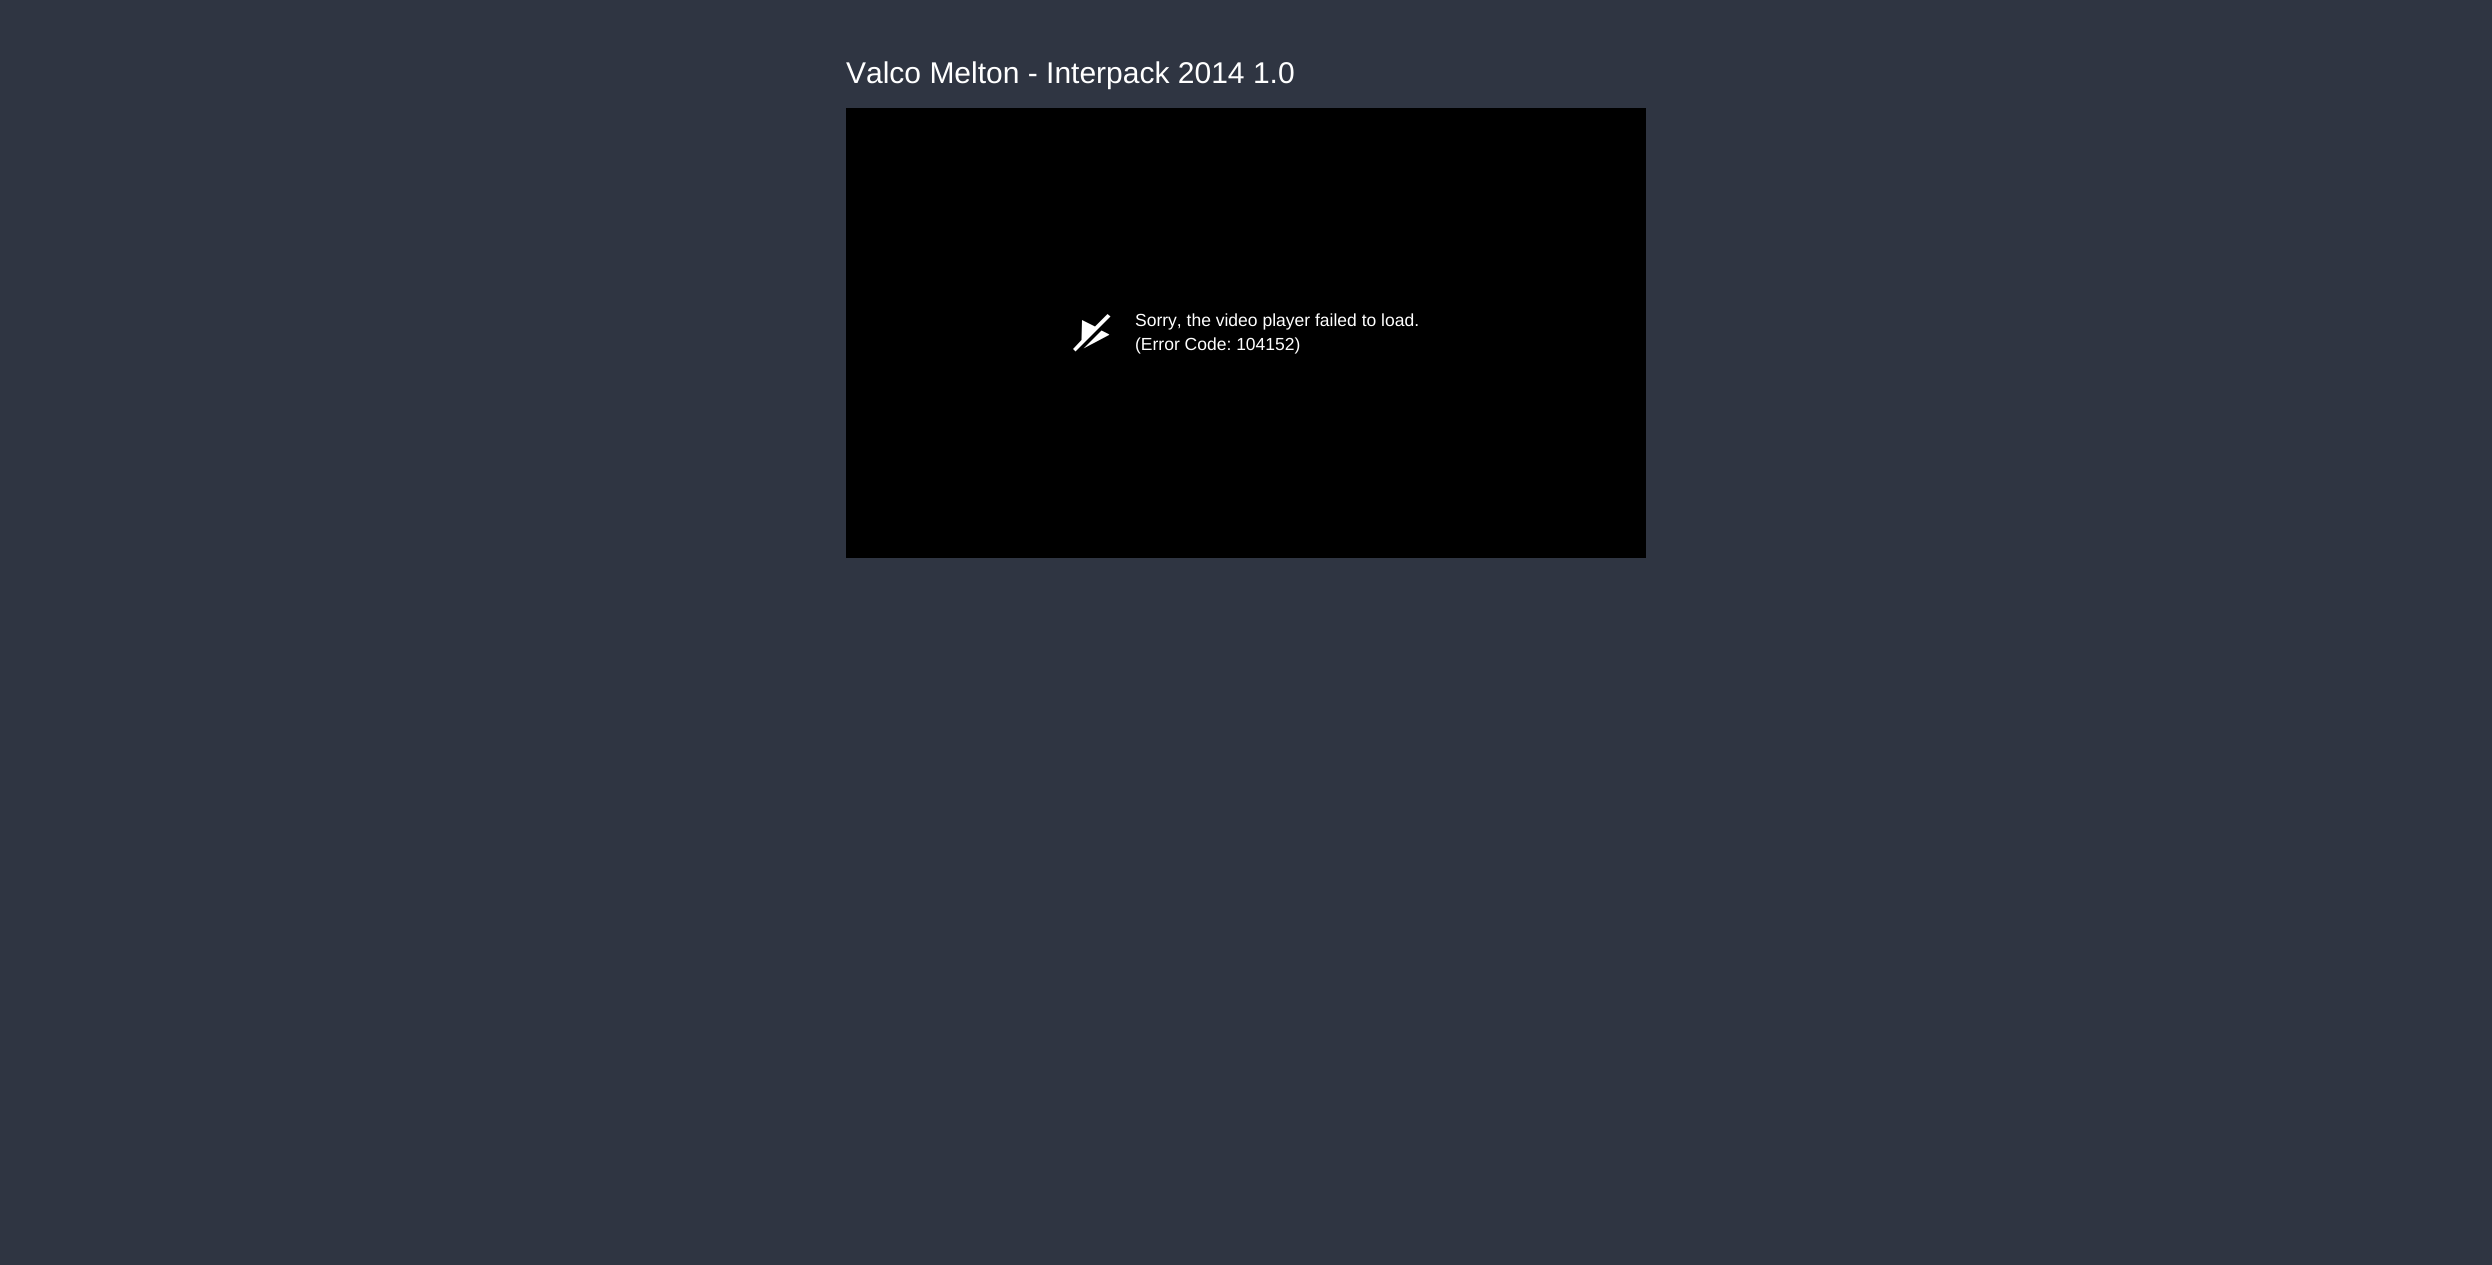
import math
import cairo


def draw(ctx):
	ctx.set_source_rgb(0.184, 0.208, 0.259)
	ctx.paint()
	ctx.select_font_face('Liberation Sans')
	ctx.set_font_size(30)
	ctx.set_source_rgb(1, 1, 1)
	ctx.move_to(846, 83)
	ctx.show_text('Valco Melton - Interpack 2014 1.0')
	ctx.set_source_rgb(0, 0, 0)
	ctx.rectangle(846, 108, 800, 450)
	ctx.fill()
	ctx.set_source_rgb(1, 1, 1)
	ctx.new_path()
	ctx.move_to(1109, 335)
	ctx.line_to(1083.5, 348.5)
	ctx.line_to(1101.5, 330.5)
	ctx.curve_to(1108.5, 334, 1110, 334.5, 1109, 335)
	ctx.close_path()
	ctx.move_to(1107.5, 314)
	ctx.line_to(1095, 326.5)
	ctx.line_to(1082, 320)
	ctx.line_to(1081.5, 340)
	ctx.line_to(1073, 349)
	ctx.line_to(1075.5, 351.5)
	ctx.line_to(1110.5, 316.5)
	ctx.close_path()
	ctx.fill()
	ctx.set_font_size(17.5)
	ctx.move_to(1135, 326)
	ctx.show_text('Sorry, the video player failed to load.')
	ctx.move_to(1135, 350)
	ctx.show_text('(Error Code: 104152)')


surface = cairo.ImageSurface(cairo.FORMAT_RGB24, 2492, 1265)
ctx = cairo.Context(surface)
options = cairo.FontOptions()
options.set_hint_metrics(cairo.HINT_METRICS_OFF)
options.set_hint_style(cairo.HINT_STYLE_NONE)
ctx.set_font_options(options)
ctx.set_miter_limit(4)
draw(ctx)
surface.write_to_png('image.png')
